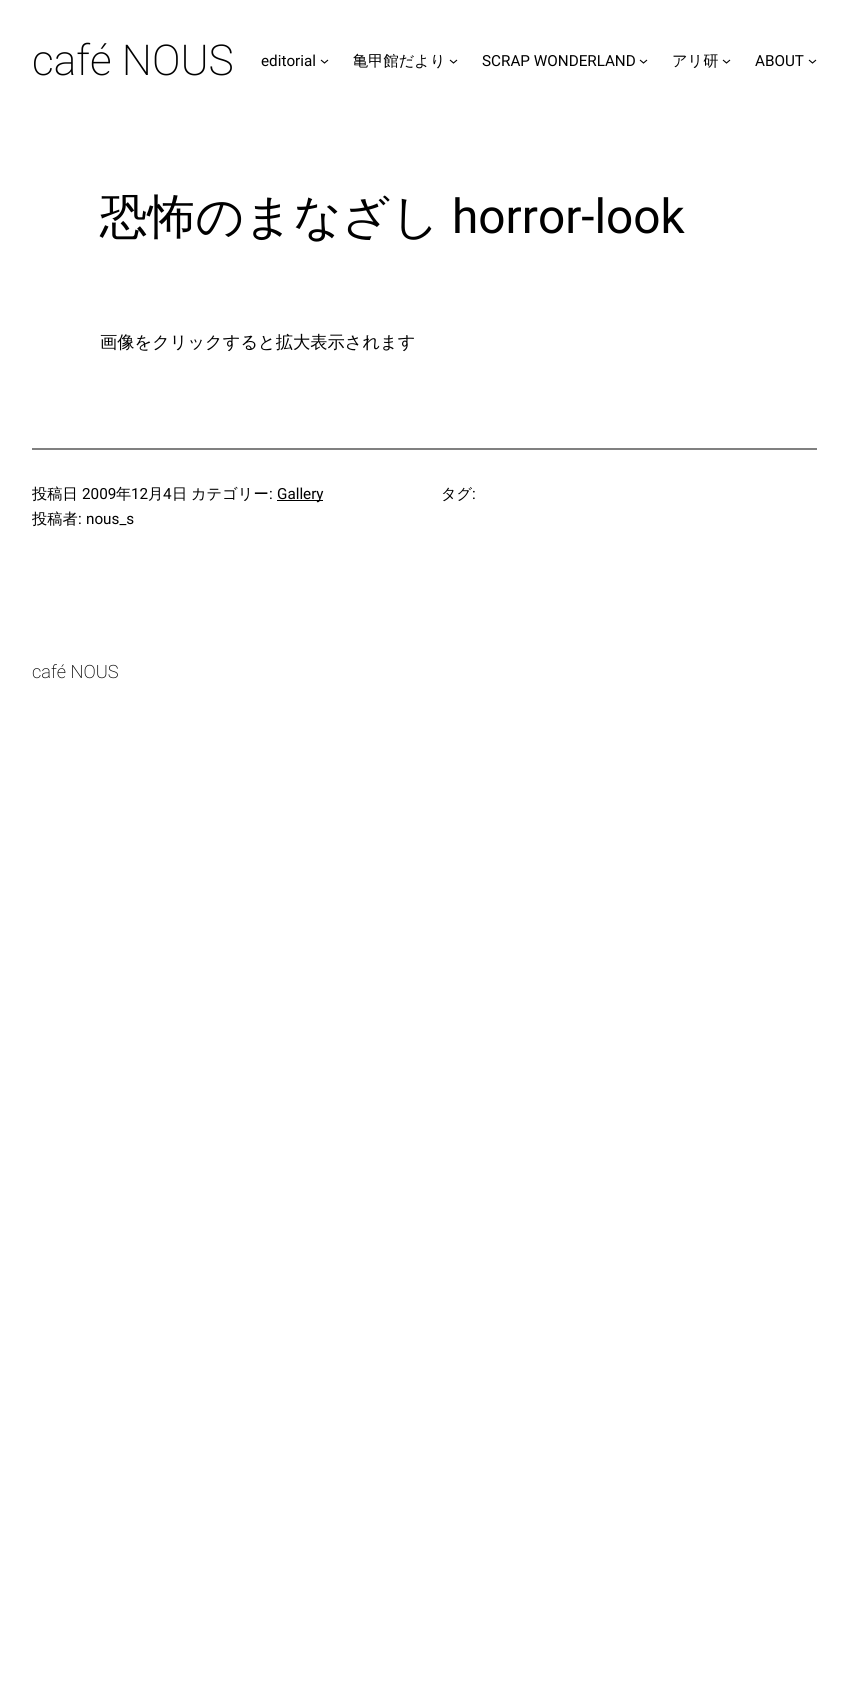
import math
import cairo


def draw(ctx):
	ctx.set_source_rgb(1, 1, 1)
	ctx.paint()
	ctx.select_font_face('Roboto ExtraLight')
	ctx.set_font_size(42.5)
	ctx.set_source_rgb(0, 0, 0)
	ctx.move_to(32, 75)
	ctx.show_text('café NOUS')
	ctx.select_font_face('Roboto')
	ctx.set_font_size(15.25)
	ctx.move_to(261, 66)
	ctx.show_text('editorial')
	ctx.new_path()
	ctx.move_to(321, 60)
	ctx.line_to(324.5, 63)
	ctx.line_to(328, 60)
	ctx.set_line_width(1.1)
	ctx.stroke()
	ctx.select_font_face('WenQuanYi Zen Hei Medium')
	ctx.move_to(353, 66)
	ctx.show_text('亀甲館だより')
	ctx.new_path()
	ctx.move_to(450, 60)
	ctx.line_to(453.5, 63)
	ctx.line_to(457, 60)
	ctx.stroke()
	ctx.select_font_face('Roboto')
	ctx.move_to(482, 66)
	ctx.show_text('SCRAP WONDERLAND')
	ctx.new_path()
	ctx.move_to(640, 60)
	ctx.line_to(643.5, 63)
	ctx.line_to(647, 60)
	ctx.stroke()
	ctx.select_font_face('WenQuanYi Zen Hei Medium')
	ctx.move_to(672, 66)
	ctx.show_text('アリ研')
	ctx.new_path()
	ctx.move_to(723, 60)
	ctx.line_to(726.5, 63)
	ctx.line_to(730, 60)
	ctx.stroke()
	ctx.select_font_face('Roboto')
	ctx.move_to(755, 66)
	ctx.show_text('ABOUT')
	ctx.new_path()
	ctx.move_to(809, 60)
	ctx.line_to(812.5, 63)
	ctx.line_to(816, 60)
	ctx.stroke()
	ctx.select_font_face('WenQuanYi Zen Hei Medium')
	ctx.set_font_size(47.75)
	ctx.move_to(100, 233)
	ctx.show_text('恐怖のまなざし')
	ctx.select_font_face('Roboto')
	ctx.move_to(452, 233)
	ctx.show_text('horror-look')
	ctx.select_font_face('WenQuanYi Zen Hei Medium')
	ctx.set_font_size(17.25)
	ctx.move_to(100, 348)
	ctx.show_text('画像をクリックすると拡大表示されます')
	ctx.set_source_rgb(0.502, 0.502, 0.502)
	ctx.rectangle(32, 448, 785, 2)
	ctx.fill()
	ctx.set_font_size(15.25)
	ctx.set_source_rgb(0, 0, 0)
	ctx.move_to(32, 499)
	ctx.show_text('投稿日')
	ctx.select_font_face('Roboto')
	ctx.move_to(82, 499)
	ctx.show_text('2009')
	ctx.select_font_face('WenQuanYi Zen Hei Medium')
	ctx.move_to(116, 499)
	ctx.show_text('年')
	ctx.select_font_face('Roboto')
	ctx.move_to(131, 499)
	ctx.show_text('12')
	ctx.select_font_face('WenQuanYi Zen Hei Medium')
	ctx.move_to(148, 499)
	ctx.show_text('月')
	ctx.select_font_face('Roboto')
	ctx.move_to(163, 499)
	ctx.show_text('4')
	ctx.select_font_face('WenQuanYi Zen Hei Medium')
	ctx.move_to(172, 499)
	ctx.show_text('日')
	ctx.move_to(191, 499)
	ctx.show_text('カテゴリー')
	ctx.select_font_face('Roboto')
	ctx.move_to(269, 499)
	ctx.show_text(':')
	ctx.rectangle(277, 500, 46, 1)
	ctx.fill()
	ctx.move_to(277, 499)
	ctx.show_text('Gallery')
	ctx.select_font_face('WenQuanYi Zen Hei Medium')
	ctx.move_to(32, 524)
	ctx.show_text('投稿者')
	ctx.select_font_face('Roboto')
	ctx.move_to(78, 524)
	ctx.show_text(':')
	ctx.move_to(86, 524)
	ctx.show_text('nous_s')
	ctx.select_font_face('WenQuanYi Zen Hei Medium')
	ctx.move_to(441, 499)
	ctx.show_text('タグ')
	ctx.select_font_face('Roboto')
	ctx.move_to(472, 499)
	ctx.show_text(':')
	ctx.select_font_face('Roboto ExtraLight')
	ctx.set_font_size(18.25)
	ctx.move_to(32, 678)
	ctx.show_text('café NOUS')


surface = cairo.ImageSurface(cairo.FORMAT_RGB24, 849, 1698)
ctx = cairo.Context(surface)
options = cairo.FontOptions()
options.set_hint_metrics(cairo.HINT_METRICS_OFF)
options.set_hint_style(cairo.HINT_STYLE_NONE)
ctx.set_font_options(options)
ctx.set_miter_limit(4)
draw(ctx)
surface.write_to_png('image.png')
